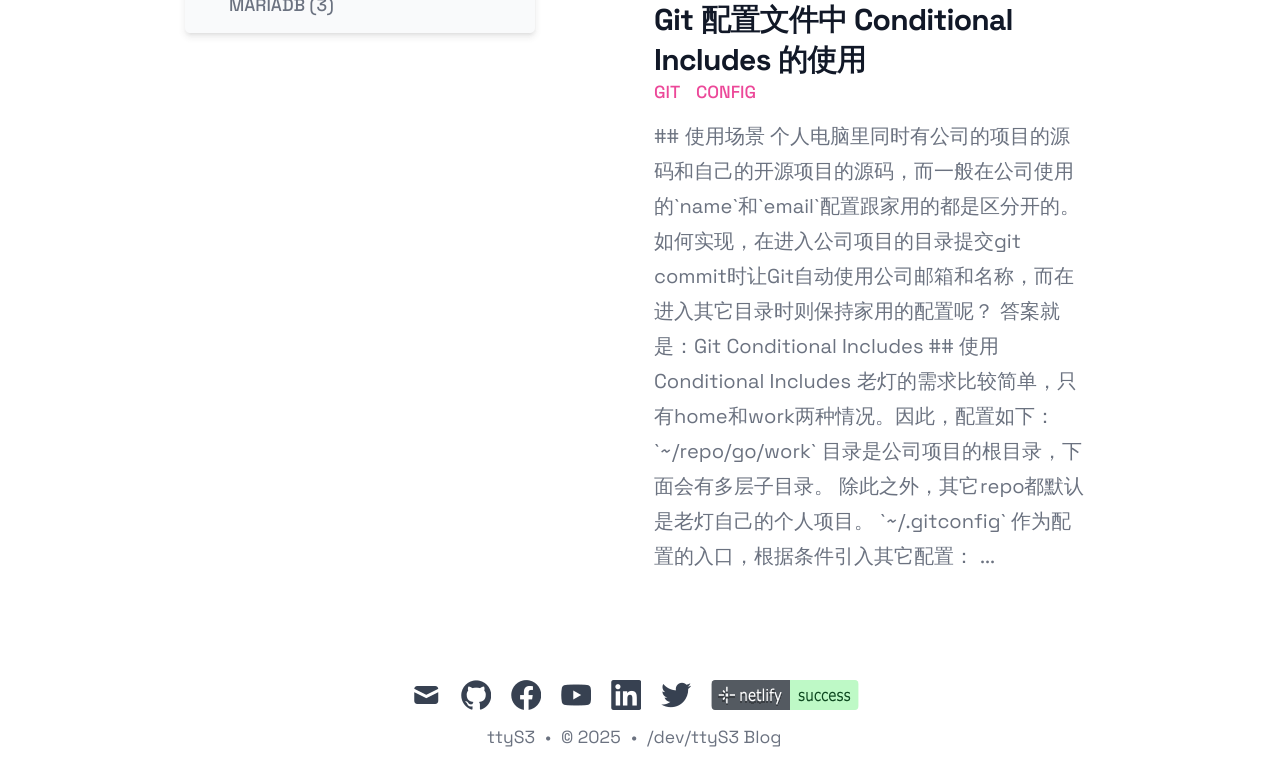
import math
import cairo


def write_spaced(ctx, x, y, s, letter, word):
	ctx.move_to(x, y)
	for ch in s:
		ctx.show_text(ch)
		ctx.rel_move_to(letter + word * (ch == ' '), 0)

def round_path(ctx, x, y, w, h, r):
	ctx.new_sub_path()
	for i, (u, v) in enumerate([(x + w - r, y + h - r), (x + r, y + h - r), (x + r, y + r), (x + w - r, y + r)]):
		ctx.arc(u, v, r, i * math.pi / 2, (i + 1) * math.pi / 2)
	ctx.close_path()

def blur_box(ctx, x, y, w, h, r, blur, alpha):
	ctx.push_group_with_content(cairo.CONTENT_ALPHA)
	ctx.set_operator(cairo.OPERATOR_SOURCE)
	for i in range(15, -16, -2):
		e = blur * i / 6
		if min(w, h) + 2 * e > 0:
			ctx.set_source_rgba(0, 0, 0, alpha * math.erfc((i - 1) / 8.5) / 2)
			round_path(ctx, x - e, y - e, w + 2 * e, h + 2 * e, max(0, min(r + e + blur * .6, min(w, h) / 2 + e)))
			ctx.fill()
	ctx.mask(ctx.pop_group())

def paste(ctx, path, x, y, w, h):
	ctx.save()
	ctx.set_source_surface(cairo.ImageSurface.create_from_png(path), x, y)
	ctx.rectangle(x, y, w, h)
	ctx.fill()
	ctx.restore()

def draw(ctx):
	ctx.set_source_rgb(1, 1, 1)
	ctx.paint()
	ctx.set_source_rgb(0, 0, 0)
	blur_box(ctx, 188, -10, 345, 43, 2.5, 2.5, 0.1)
	blur_box(ctx, 186, -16, 348, 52, 4, 4, 0.1)
	ctx.set_source_rgb(0.976, 0.98, 0.984)
	round_path(ctx, 185, -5, 350, 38, 5)
	ctx.fill()
	ctx.select_font_face('Space Grotesk Medium')
	ctx.set_font_size(17.5)
	ctx.set_source_rgb(0.42, 0.447, 0.502)
	ctx.move_to(229, 11)
	ctx.show_text('MARIADB (3)')
	ctx.select_font_face('Space Grotesk', cairo.FONT_SLANT_NORMAL, cairo.FONT_WEIGHT_BOLD)
	ctx.set_font_size(30)
	ctx.set_source_rgb(0.067, 0.094, 0.153)
	write_spaced(ctx, 654, 30, 'Git', -0.75, 0)
	ctx.select_font_face('WenQuanYi Zen Hei', cairo.FONT_SLANT_NORMAL, cairo.FONT_WEIGHT_BOLD)
	write_spaced(ctx, 701, 30, '配置文件中', -0.75, 0)
	ctx.select_font_face('Space Grotesk', cairo.FONT_SLANT_NORMAL, cairo.FONT_WEIGHT_BOLD)
	write_spaced(ctx, 854, 30, 'Conditional', -0.75, 0)
	write_spaced(ctx, 654, 70, 'Includes', -0.75, 0)
	ctx.select_font_face('WenQuanYi Zen Hei', cairo.FONT_SLANT_NORMAL, cairo.FONT_WEIGHT_BOLD)
	write_spaced(ctx, 778, 70, '的使用', -0.75, 0)
	ctx.select_font_face('Space Grotesk Medium')
	ctx.set_font_size(17.5)
	ctx.set_source_rgb(0.925, 0.282, 0.6)
	ctx.move_to(654, 98)
	ctx.show_text('GIT')
	ctx.move_to(696, 98)
	ctx.show_text('CONFIG')
	ctx.select_font_face('Space Grotesk')
	ctx.set_font_size(20)
	ctx.set_source_rgb(0.42, 0.447, 0.502)
	ctx.move_to(654, 143)
	ctx.show_text('##')
	ctx.select_font_face('WenQuanYi Zen Hei Medium')
	for x, y, s in [
		(685, 143, '使用场景'),
		(770, 143, '个人电脑里同时有公司的项目的源'),
		(654, 178, '码和自己的开源项目的源码，而一般在公司使用'),
		(654, 213, '的'),
	]:
		ctx.move_to(x, y)
		ctx.show_text(s)
	ctx.select_font_face('Space Grotesk')
	ctx.move_to(674, 213)
	ctx.show_text('`name`')
	ctx.select_font_face('WenQuanYi Zen Hei Medium')
	ctx.move_to(738, 213)
	ctx.show_text('和')
	ctx.select_font_face('Space Grotesk')
	ctx.move_to(758, 213)
	ctx.show_text('`email`')
	ctx.select_font_face('WenQuanYi Zen Hei Medium')
	ctx.move_to(820, 213)
	ctx.show_text('配置跟家用的都是区分开的。')
	ctx.move_to(654, 248)
	ctx.show_text('如何实现，在进入公司项目的目录提交')
	ctx.select_font_face('Space Grotesk')
	ctx.move_to(994, 248)
	ctx.show_text('git')
	ctx.move_to(654, 283)
	ctx.show_text('commit')
	ctx.select_font_face('WenQuanYi Zen Hei Medium')
	ctx.move_to(727, 283)
	ctx.show_text('时让')
	ctx.select_font_face('Space Grotesk')
	ctx.move_to(767, 283)
	ctx.show_text('Git')
	ctx.select_font_face('WenQuanYi Zen Hei Medium')
	for x, y, s in [
		(794, 283, '自动使用公司邮箱和名称，而在'),
		(654, 318, '进入其它目录时则保持家用的配置呢？'),
		(1000, 318, '答案就'),
		(654, 353, '是：'),
	]:
		ctx.move_to(x, y)
		ctx.show_text(s)
	ctx.select_font_face('Space Grotesk')
	ctx.move_to(694, 353)
	ctx.show_text('Git Conditional Includes ##')
	ctx.select_font_face('WenQuanYi Zen Hei Medium')
	ctx.move_to(959, 353)
	ctx.show_text('使用')
	ctx.select_font_face('Space Grotesk')
	ctx.move_to(654, 388)
	ctx.show_text('Conditional Includes')
	ctx.select_font_face('WenQuanYi Zen Hei Medium')
	ctx.move_to(857, 388)
	ctx.show_text('老灯的需求比较简单，只')
	ctx.move_to(654, 423)
	ctx.show_text('有')
	ctx.select_font_face('Space Grotesk')
	ctx.move_to(674, 423)
	ctx.show_text('home')
	ctx.select_font_face('WenQuanYi Zen Hei Medium')
	ctx.move_to(728, 423)
	ctx.show_text('和')
	ctx.select_font_face('Space Grotesk')
	ctx.move_to(748, 423)
	ctx.show_text('work')
	ctx.select_font_face('WenQuanYi Zen Hei Medium')
	ctx.move_to(795, 423)
	ctx.show_text('两种情况。因此，配置如下：')
	ctx.select_font_face('Space Grotesk')
	ctx.move_to(654, 458)
	ctx.show_text('`~/repo/go/work`')
	ctx.select_font_face('WenQuanYi Zen Hei Medium')
	ctx.move_to(822, 458)
	ctx.show_text('目录是公司项目的根目录，下')
	write_spaced(ctx, 654, 493, '面会有多层子目录。 除此之外，其它', 0, -1)
	ctx.select_font_face('Space Grotesk')
	ctx.move_to(980, 493)
	ctx.show_text('repo')
	ctx.select_font_face('WenQuanYi Zen Hei Medium')
	ctx.move_to(1024, 493)
	ctx.show_text('都默认')
	ctx.move_to(654, 528)
	ctx.show_text('是老灯自己的个人项目。')
	ctx.select_font_face('Space Grotesk')
	ctx.move_to(880, 528)
	ctx.show_text('`~/.gitconfig`')
	ctx.select_font_face('WenQuanYi Zen Hei Medium')
	ctx.move_to(1011, 528)
	ctx.show_text('作为配')
	ctx.move_to(654, 563)
	ctx.show_text('置的入口，根据条件引入其它配置：')
	ctx.select_font_face('Space Grotesk')
	ctx.move_to(980, 563)
	ctx.show_text('...')
	paste(ctx, 'media/1.png', 414, 686, 25, 18)
	paste(ctx, 'media/2.png', 461, 680, 30, 30)
	paste(ctx, 'media/3.png', 511, 680, 30, 30)
	paste(ctx, 'media/4.png', 561, 684, 30, 22)
	paste(ctx, 'media/5.png', 611, 680, 30, 30)
	paste(ctx, 'media/6.png', 661, 682, 30, 26)
	paste(ctx, 'media/7.png', 711, 680, 148, 30)
	ctx.set_font_size(17.5)
	for x, y, s in [
		(487, 743, 'ttyS3'),
		(545, 743, '•'),
		(561, 743, '© 2025'),
		(631, 743, '•'),
		(647, 743, '/dev/ttyS3 Blog'),
	]:
		ctx.move_to(x, y)
		ctx.show_text(s)


surface = cairo.ImageSurface(cairo.FORMAT_RGB24, 1268, 762)
ctx = cairo.Context(surface)
options = cairo.FontOptions()
options.set_hint_metrics(cairo.HINT_METRICS_OFF)
options.set_hint_style(cairo.HINT_STYLE_NONE)
ctx.set_font_options(options)
ctx.set_miter_limit(4)
draw(ctx)
surface.write_to_png('image.png')
